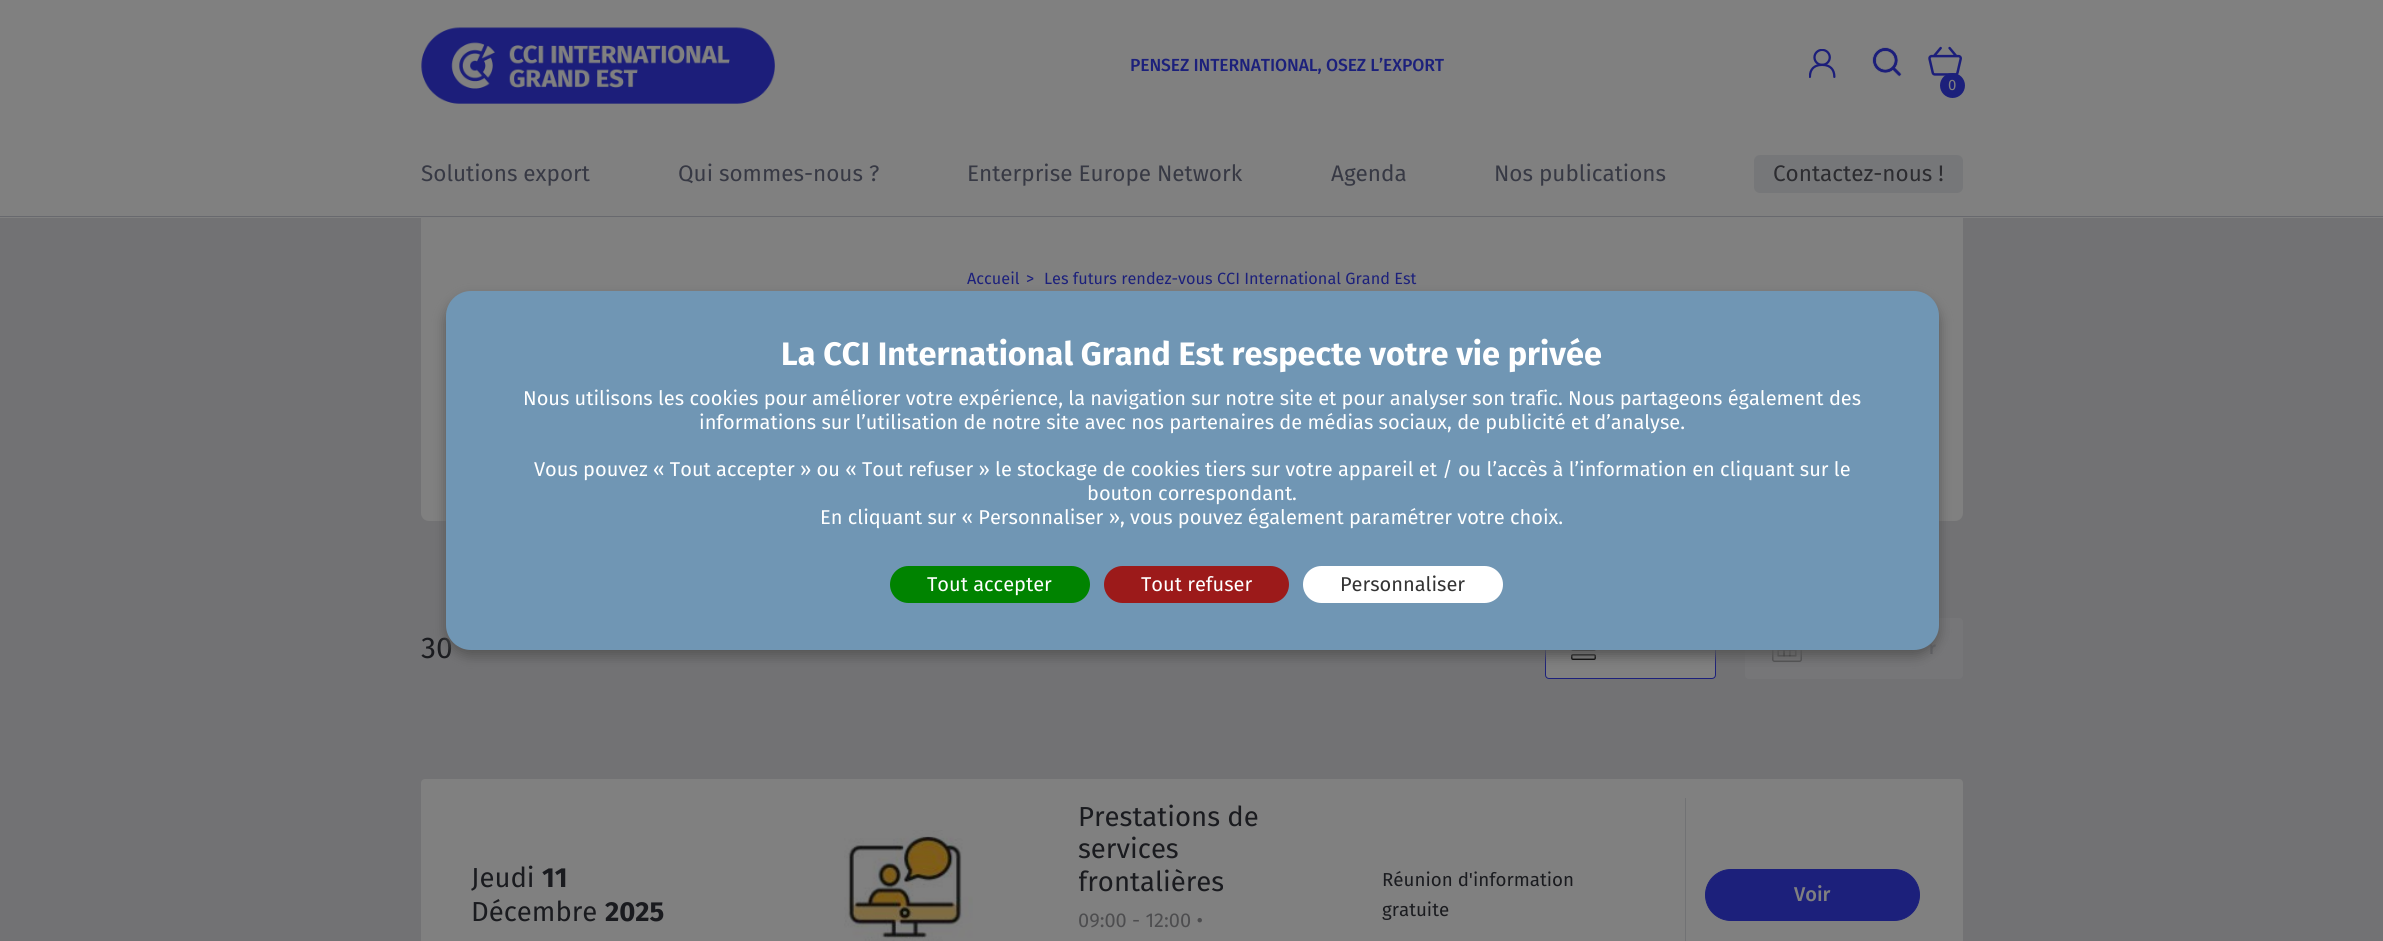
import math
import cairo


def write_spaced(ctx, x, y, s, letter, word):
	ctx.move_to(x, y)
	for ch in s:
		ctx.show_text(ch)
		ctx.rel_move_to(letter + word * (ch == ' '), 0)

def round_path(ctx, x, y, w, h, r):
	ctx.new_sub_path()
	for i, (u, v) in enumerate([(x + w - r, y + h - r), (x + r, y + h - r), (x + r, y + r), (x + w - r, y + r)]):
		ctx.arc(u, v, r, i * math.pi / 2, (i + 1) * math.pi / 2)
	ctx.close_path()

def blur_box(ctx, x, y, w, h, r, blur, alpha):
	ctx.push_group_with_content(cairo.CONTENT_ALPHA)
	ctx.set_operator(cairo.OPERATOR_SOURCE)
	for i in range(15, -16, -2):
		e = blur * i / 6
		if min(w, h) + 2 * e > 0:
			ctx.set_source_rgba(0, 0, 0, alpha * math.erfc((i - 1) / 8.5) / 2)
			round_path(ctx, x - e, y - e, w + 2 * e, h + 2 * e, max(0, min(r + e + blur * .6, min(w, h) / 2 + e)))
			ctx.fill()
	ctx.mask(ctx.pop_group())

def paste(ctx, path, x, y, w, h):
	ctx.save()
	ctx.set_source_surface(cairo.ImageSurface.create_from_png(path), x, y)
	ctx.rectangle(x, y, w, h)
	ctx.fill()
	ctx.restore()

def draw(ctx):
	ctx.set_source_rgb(0.447, 0.447, 0.455)
	ctx.paint()
	ctx.set_source_rgb(0.502, 0.502, 0.502)
	ctx.rectangle(0, 0, 2383, 218)
	ctx.fill()
	ctx.set_source_rgb(0.408, 0.412, 0.431)
	ctx.rectangle(0, 216, 2383, 1)
	ctx.fill()
	paste(ctx, 'media/1.png', 421, 27, 354, 77)
	ctx.select_font_face('Fira Sans Medium')
	ctx.set_font_size(17.5)
	ctx.set_source_rgb(0.11, 0.125, 0.482)
	write_spaced(ctx, 1130, 71, 'PENSEZ INTERNATIONAL, OSEZ L’EXPORT', -0.1, 0)
	paste(ctx, 'media/2.png', 1809, 49, 27, 29)
	paste(ctx, 'media/3.png', 1872, 47, 30, 30)
	paste(ctx, 'media/4.png', 1928, 46, 34, 30)
	ctx.arc(1952.5, 85.5, 12.5, 0, 2 * math.pi)
	ctx.fill()
	ctx.select_font_face('Fira Sans')
	ctx.set_font_size(15)
	ctx.set_source_rgb(0.502, 0.502, 0.502)
	ctx.move_to(1948, 90)
	ctx.show_text('0')
	ctx.set_font_size(22.5)
	ctx.set_source_rgb(0.216, 0.224, 0.267)
	for x, y, s in [
		(421, 181, 'Solutions export'),
		(678, 181, 'Qui sommes-nous ?'),
		(967, 181, 'Enterprise Europe Network'),
		(1331, 181, 'Agenda'),
		(1494, 181, 'Nos publications'),
	]:
		ctx.move_to(x, y)
		ctx.show_text(s)
	ctx.set_source_rgb(0.463, 0.467, 0.475)
	round_path(ctx, 1754, 155, 209, 38, 6)
	ctx.fill()
	ctx.set_source_rgb(0.173, 0.173, 0.188)
	ctx.move_to(1773, 181)
	ctx.show_text('Contactez-nous !')
	ctx.set_source_rgb(0.502, 0.502, 0.502)
	ctx.new_path()
	ctx.move_to(421, 218)
	ctx.line_to(1963, 218)
	ctx.line_to(1963, 513)
	ctx.curve_to(1963, 517.5, 1959.5, 521, 1955, 521)
	ctx.line_to(429, 521)
	ctx.curve_to(424.5, 521, 421, 517.5, 421, 513)
	ctx.close_path()
	ctx.fill()
	ctx.set_font_size(16.25)
	ctx.set_source_rgb(0.11, 0.125, 0.482)
	for x, y, s in [
		(967, 284, 'Accueil'),
		(1026, 284, '>'),
		(1044, 284, 'Les futurs rendez-vous CCI International Grand Est'),
	]:
		ctx.move_to(x, y)
		ctx.show_text(s)
	ctx.set_font_size(30)
	ctx.set_source_rgb(0.102, 0.106, 0.122)
	ctx.move_to(421, 658)
	ctx.show_text('30')
	ctx.set_source_rgb(0.502, 0.502, 0.502)
	round_path(ctx, 1545.5, 618.5, 170, 60, 3.5)
	ctx.fill_preserve()
	ctx.set_source_rgb(0.11, 0.125, 0.482)
	ctx.set_line_width(1)
	ctx.stroke()
	round_path(ctx, 1571.75, 644.75, 23.5, 5.5, 1.25)
	ctx.set_source_rgb(0, 0, 0)
	ctx.set_line_width(1.5)
	ctx.stroke()
	round_path(ctx, 1571.75, 654.75, 23.5, 4.5, 1.25)
	ctx.stroke()
	ctx.set_source_rgb(0.463, 0.463, 0.471)
	round_path(ctx, 1745, 618, 218, 61, 4)
	ctx.fill()
	ctx.select_font_face('Fira Sans Medium')
	ctx.set_font_size(17.5)
	ctx.set_source_rgb(0.376, 0.38, 0.4)
	ctx.move_to(1929, 654)
	ctx.show_text('r')
	paste(ctx, 'media/5.png', 1772, 650, 30, 12)
	ctx.set_source_rgb(0.502, 0.502, 0.502)
	round_path(ctx, 421, 779, 1542, 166, 4)
	ctx.fill()
	ctx.select_font_face('Fira Sans')
	ctx.set_font_size(27.5)
	ctx.set_source_rgb(0.102, 0.106, 0.122)
	ctx.move_to(471, 887)
	ctx.show_text('Jeudi')
	ctx.select_font_face('Fira Sans', cairo.FONT_SLANT_NORMAL, cairo.FONT_WEIGHT_BOLD)
	ctx.move_to(542, 887)
	ctx.show_text('11')
	ctx.select_font_face('Fira Sans')
	ctx.move_to(471, 921)
	ctx.show_text('Décembre')
	ctx.select_font_face('Fira Sans', cairo.FONT_SLANT_NORMAL, cairo.FONT_WEIGHT_BOLD)
	ctx.move_to(605, 921)
	ctx.show_text('2025')
	paste(ctx, 'media/6.png', 844, 830, 129, 111)
	ctx.select_font_face('Fira Sans')
	ctx.move_to(1078, 826)
	ctx.show_text('Prestations de')
	ctx.move_to(1078, 858)
	ctx.show_text('services')
	ctx.save()
	ctx.rectangle(1079, 801, 252, 98)
	ctx.clip()
	ctx.move_to(1078, 891)
	ctx.show_text('frontalières')
	ctx.restore()
	ctx.set_font_size(20)
	ctx.set_source_rgb(0.302, 0.302, 0.31)
	ctx.move_to(1078, 927)
	ctx.show_text('09:00 - 12:00 •')
	ctx.set_font_size(18.75)
	ctx.set_source_rgb(0.102, 0.106, 0.122)
	ctx.move_to(1382, 886)
	ctx.show_text('Réunion d\'information')
	ctx.move_to(1382, 916)
	ctx.show_text('gratuite')
	ctx.set_source_rgb(0.443, 0.447, 0.455)
	ctx.rectangle(1685, 798, 1, 143)
	ctx.fill()
	ctx.set_source_rgb(0.11, 0.125, 0.482)
	round_path(ctx, 1705.5, 869.5, 214, 51, 25.5)
	ctx.fill_preserve()
	ctx.set_line_width(1)
	ctx.stroke()
	ctx.select_font_face('Fira Sans Medium')
	ctx.set_font_size(20)
	ctx.set_source_rgb(0.502, 0.502, 0.502)
	ctx.move_to(1794, 901)
	ctx.show_text('Voir')
	ctx.set_source_rgb(0.333, 0.333, 0.333)
	blur_box(ctx, 446, 298, 1493, 358, 25, 6, 1)
	ctx.set_source_rgb(0.439, 0.588, 0.706)
	round_path(ctx, 446, 291, 1493, 359, 25)
	ctx.fill()
	ctx.select_font_face('Fira Sans', cairo.FONT_SLANT_NORMAL, cairo.FONT_WEIGHT_BOLD)
	ctx.set_font_size(32.5)
	ctx.set_source_rgb(1, 1, 1)
	ctx.move_to(781, 365)
	ctx.show_text('La CCI International Grand Est respecte votre vie privée')
	ctx.select_font_face('Fira Sans')
	ctx.set_font_size(20)
	for x, y, s in [
		(523, 405, 'Nous utilisons les cookies pour améliorer votre expérience, la navigation sur notre site et pour analyser son trafic. Nous partageons également des'),
		(699, 429, 'informations sur l’utilisation de notre site avec nos partenaires de médias sociaux, de publicité et d’analyse.'),
		(534, 476, 'Vous pouvez « Tout accepter » ou « Tout refuser » le stockage de cookies tiers sur votre appareil et / ou l’accès à l’information en cliquant sur le'),
		(1087, 500, 'bouton correspondant.'),
		(820, 524, 'En cliquant sur « Personnaliser », vous pouvez également paramétrer votre choix.'),
	]:
		ctx.move_to(x, y)
		ctx.show_text(s)
	ctx.set_source_rgb(0, 0.514, 0)
	round_path(ctx, 890, 566, 200, 37, 18.5)
	ctx.fill()
	ctx.set_source_rgb(1, 1, 1)
	ctx.move_to(927, 591)
	ctx.show_text('Tout accepter')
	ctx.set_source_rgb(0.612, 0.102, 0.102)
	round_path(ctx, 1104, 566, 185, 37, 18.5)
	ctx.fill()
	ctx.set_source_rgb(1, 1, 1)
	ctx.move_to(1141, 591)
	ctx.show_text('Tout refuser')
	round_path(ctx, 1303, 566, 200, 37, 18.5)
	ctx.fill()
	ctx.set_source_rgb(0.2, 0.2, 0.2)
	ctx.move_to(1340, 591)
	ctx.show_text('Personnaliser')


surface = cairo.ImageSurface(cairo.FORMAT_RGB24, 2383, 941)
ctx = cairo.Context(surface)
options = cairo.FontOptions()
options.set_hint_metrics(cairo.HINT_METRICS_OFF)
options.set_hint_style(cairo.HINT_STYLE_NONE)
ctx.set_font_options(options)
ctx.set_miter_limit(4)
draw(ctx)
surface.write_to_png('image.png')
